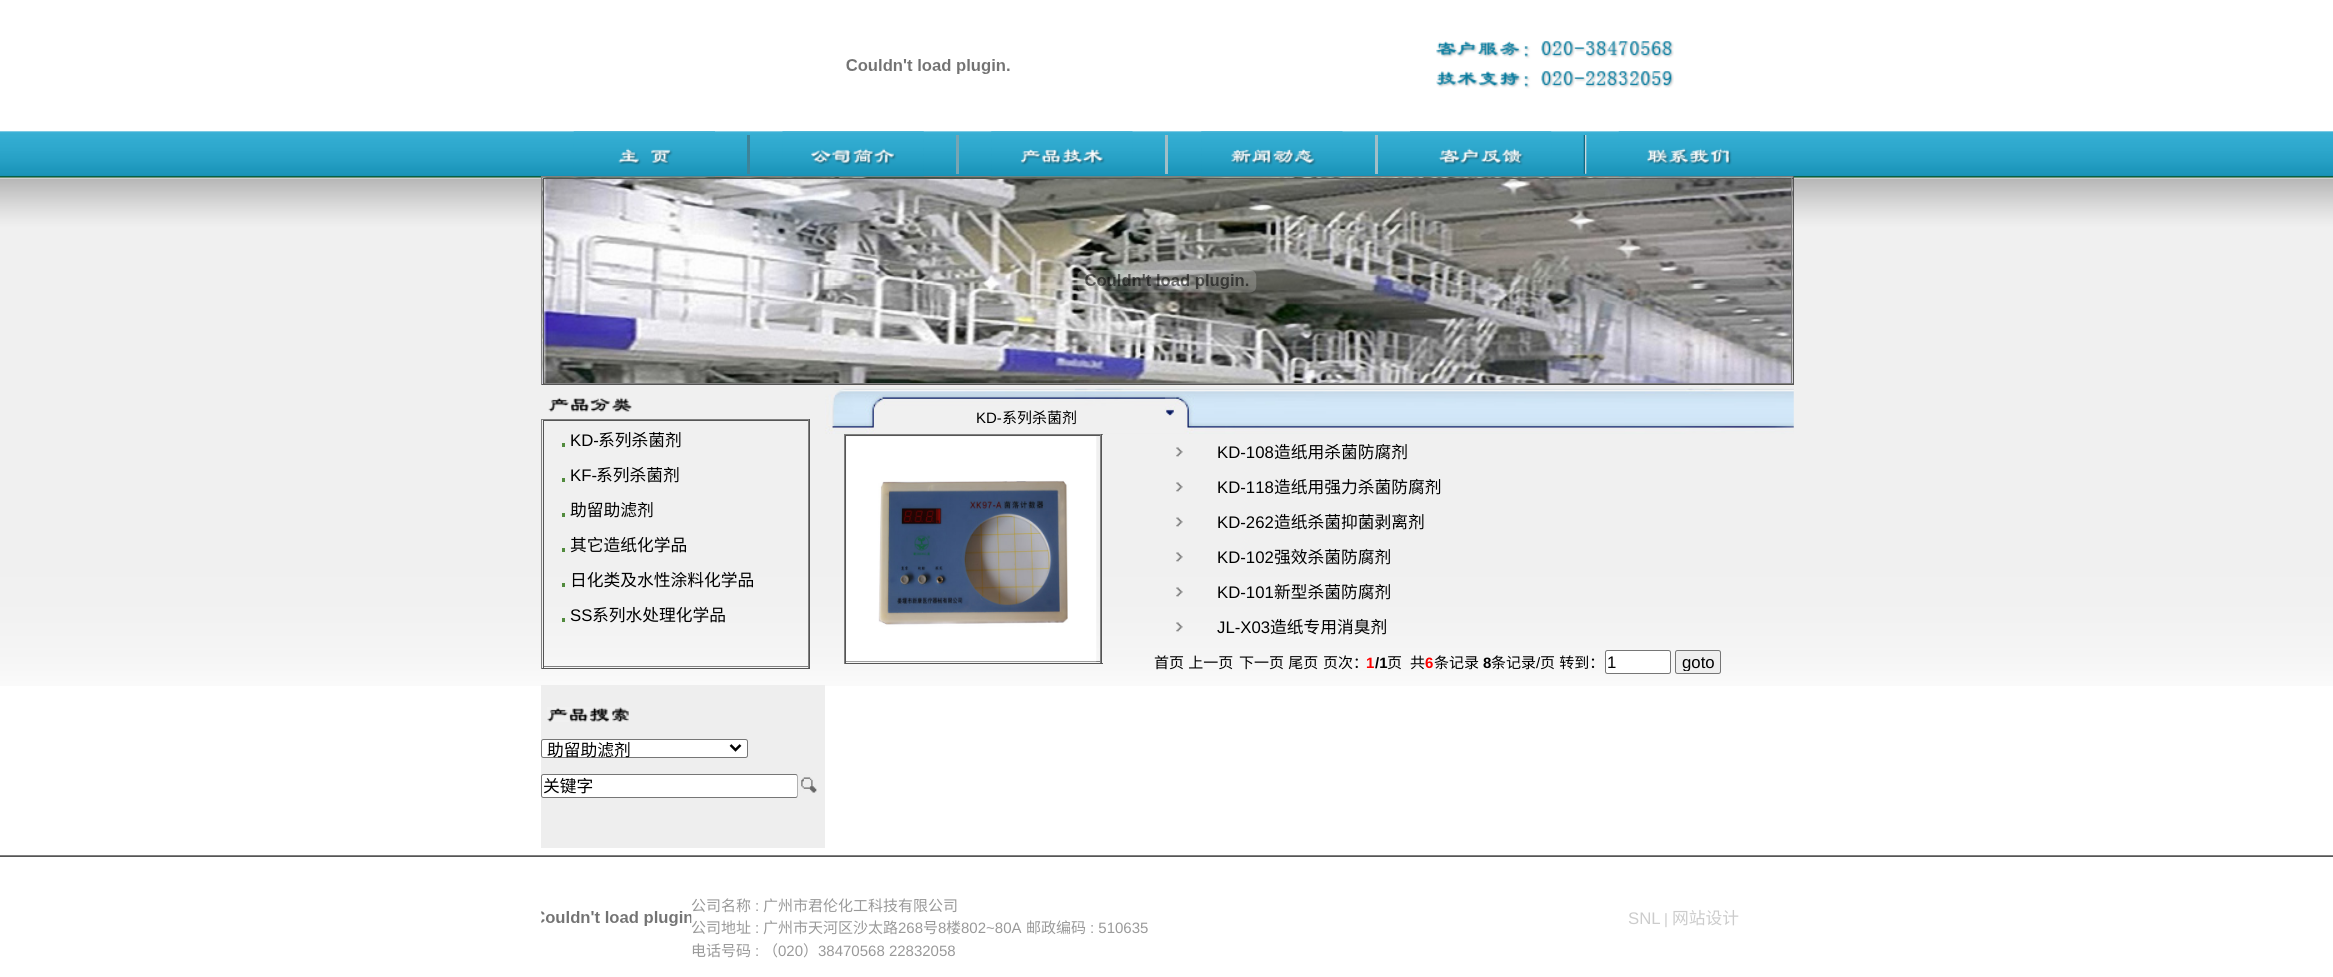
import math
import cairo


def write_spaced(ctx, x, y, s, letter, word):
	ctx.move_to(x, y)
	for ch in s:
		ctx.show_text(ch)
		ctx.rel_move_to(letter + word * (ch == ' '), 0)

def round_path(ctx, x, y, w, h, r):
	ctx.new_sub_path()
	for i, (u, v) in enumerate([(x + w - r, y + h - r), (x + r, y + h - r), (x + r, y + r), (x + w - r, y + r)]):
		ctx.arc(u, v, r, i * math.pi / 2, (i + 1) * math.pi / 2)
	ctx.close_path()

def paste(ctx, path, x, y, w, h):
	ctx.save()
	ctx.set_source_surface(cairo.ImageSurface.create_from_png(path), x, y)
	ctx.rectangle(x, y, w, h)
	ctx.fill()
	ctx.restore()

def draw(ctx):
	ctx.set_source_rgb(1, 1, 1)
	ctx.paint()
	paste(ctx, 'media/1.png', 0, 131, 2333, 555)
	paste(ctx, 'media/2.png', 846, 59, 164, 15)
	paste(ctx, 'media/3.png', 1436, 40, 238, 49)
	ctx.set_source_rgb(0.502, 0.502, 0.502)
	ctx.rectangle(541, 176, 1253, 1)
	ctx.fill()
	paste(ctx, 'media/4.png', 573, 131, 142, 46)
	ctx.set_source_rgb(0.243, 0.514, 0.596)
	ctx.rectangle(747, 135, 3, 39)
	ctx.fill()
	paste(ctx, 'media/5.png', 782, 131, 142, 46)
	ctx.set_source_rgb(0.467, 0.647, 0.702)
	ctx.rectangle(956, 135, 3, 39)
	ctx.fill()
	paste(ctx, 'media/6.png', 991, 131, 142, 46)
	ctx.set_source_rgb(0.631, 0.745, 0.78)
	ctx.rectangle(1165, 135, 3, 39)
	ctx.fill()
	paste(ctx, 'media/7.png', 1201, 131, 142, 46)
	ctx.rectangle(1375, 135, 3, 39)
	ctx.fill()
	paste(ctx, 'media/8.png', 1410, 131, 142, 46)
	paste(ctx, 'media/9.png', 1583, 135, 4, 39)
	paste(ctx, 'media/10.png', 1618, 131, 142, 46)
	ctx.set_source_rgb(0.333, 0.333, 0.333)
	ctx.rectangle(1793, 176, 1, 209)
	ctx.rectangle(541, 384, 1253, 1)
	ctx.fill()
	ctx.set_source_rgb(0.502, 0.502, 0.502)
	ctx.rectangle(541, 176, 1, 209)
	ctx.fill()
	paste(ctx, 'media/11.png', 542, 177, 1251, 207)
	ctx.set_source_rgb(0.333, 0.333, 0.333)
	ctx.rectangle(543, 178, 1250, 1)
	ctx.fill()
	ctx.set_source_rgb(0.502, 0.502, 0.502)
	ctx.rectangle(1791, 178, 1, 206)
	ctx.rectangle(543, 383, 1250, 1)
	ctx.fill()
	ctx.set_source_rgb(0.333, 0.333, 0.333)
	ctx.rectangle(543, 178, 1, 206)
	ctx.fill()
	paste(ctx, 'media/12.png', 1077, 270, 180, 23)
	paste(ctx, 'media/13.png', 548, 397, 84, 15)
	ctx.set_source_rgb(0.502, 0.502, 0.502)
	ctx.rectangle(541, 419, 269, 1)
	ctx.fill()
	ctx.set_source_rgb(0.333, 0.333, 0.333)
	ctx.rectangle(809, 419, 1, 250)
	ctx.rectangle(541, 668, 269, 1)
	ctx.fill()
	ctx.set_source_rgb(0.502, 0.502, 0.502)
	ctx.rectangle(541, 419, 1, 250)
	ctx.fill()
	ctx.set_source_rgb(0.333, 0.333, 0.333)
	ctx.rectangle(543, 420, 266, 1)
	ctx.fill()
	ctx.set_source_rgb(0.502, 0.502, 0.502)
	ctx.rectangle(808, 420, 1, 248)
	ctx.rectangle(543, 666, 266, 1)
	ctx.fill()
	ctx.set_source_rgb(0.333, 0.333, 0.333)
	ctx.rectangle(543, 420, 1, 248)
	ctx.fill()
	ctx.set_source_rgb(0.322, 0.545, 0.243)
	ctx.rectangle(562, 443, 3, 4)
	ctx.fill()
	ctx.select_font_face('Liberation Sans')
	ctx.set_font_size(16.75)
	ctx.set_source_rgb(0, 0, 0)
	ctx.move_to(570, 446)
	ctx.show_text('KD-')
	ctx.select_font_face('Noto Sans CJK SC')
	ctx.move_to(598, 446)
	ctx.show_text('系列杀菌剂')
	ctx.set_source_rgb(0.322, 0.545, 0.243)
	ctx.rectangle(562, 478, 3, 4)
	ctx.fill()
	ctx.select_font_face('Liberation Sans')
	ctx.set_source_rgb(0, 0, 0)
	ctx.move_to(570, 481)
	ctx.show_text('KF-')
	ctx.select_font_face('Noto Sans CJK SC')
	ctx.move_to(596, 481)
	ctx.show_text('系列杀菌剂')
	ctx.set_source_rgb(0.322, 0.545, 0.243)
	ctx.rectangle(562, 513, 3, 4)
	ctx.fill()
	ctx.set_source_rgb(0, 0, 0)
	ctx.move_to(570, 516)
	ctx.show_text('助留助滤剂')
	ctx.set_source_rgb(0.322, 0.545, 0.243)
	ctx.rectangle(562, 548, 3, 4)
	ctx.fill()
	ctx.set_source_rgb(0, 0, 0)
	ctx.move_to(570, 551)
	ctx.show_text('其它造纸化学品')
	ctx.set_source_rgb(0.322, 0.545, 0.243)
	ctx.rectangle(562, 583, 3, 4)
	ctx.fill()
	ctx.set_source_rgb(0, 0, 0)
	ctx.move_to(570, 586)
	ctx.show_text('日化类及水性涂料化学品')
	ctx.set_source_rgb(0.322, 0.545, 0.243)
	ctx.rectangle(562, 618, 3, 4)
	ctx.fill()
	ctx.select_font_face('Liberation Sans')
	ctx.set_source_rgb(0, 0, 0)
	ctx.move_to(570, 621)
	ctx.show_text('SS')
	ctx.select_font_face('Noto Sans CJK SC')
	ctx.move_to(592, 621)
	ctx.show_text('系列水处理化学品')
	ctx.set_source_rgb(0.933, 0.933, 0.933)
	ctx.rectangle(541, 685, 284, 163)
	ctx.fill()
	paste(ctx, 'media/14.png', 547, 707, 82, 15)
	ctx.set_source_rgb(1, 1, 1)
	round_path(ctx, 541.5, 739.5, 206, 18, 2)
	ctx.fill_preserve()
	ctx.set_source_rgb(0.463, 0.463, 0.463)
	ctx.set_line_width(1)
	ctx.stroke()
	ctx.new_path()
	ctx.move_to(730.5, 745)
	ctx.line_to(735.5, 750)
	ctx.line_to(740.5, 745)
	ctx.set_source_rgb(0, 0, 0)
	ctx.set_line_width(2.5)
	ctx.stroke()
	ctx.move_to(547, 756)
	ctx.show_text('助留助滤剂')
	ctx.set_source_rgb(1, 1, 1)
	round_path(ctx, 541.5, 774.5, 256, 23, 2)
	ctx.fill_preserve()
	ctx.set_source_rgb(0.463, 0.463, 0.463)
	ctx.set_line_width(1)
	ctx.stroke()
	ctx.set_source_rgb(0, 0, 0)
	ctx.move_to(543, 792)
	ctx.show_text('关键字')
	paste(ctx, 'media/15.png', 797, 774, 20, 24)
	paste(ctx, 'media/16.png', 825, 385, 969, 49)
	ctx.select_font_face('Liberation Sans')
	ctx.set_font_size(15)
	ctx.move_to(976, 423)
	ctx.show_text('KD-')
	ctx.select_font_face('Noto Sans CJK SC')
	ctx.move_to(1002, 423)
	ctx.show_text('系列杀菌剂')
	ctx.set_source_rgb(0.502, 0.502, 0.502)
	ctx.rectangle(844, 434, 259, 1)
	ctx.fill()
	ctx.set_source_rgb(0.333, 0.333, 0.333)
	ctx.rectangle(1101, 434, 1, 230)
	ctx.rectangle(844, 663, 259, 1)
	ctx.fill()
	ctx.set_source_rgb(0.502, 0.502, 0.502)
	ctx.rectangle(844, 434, 1, 230)
	ctx.fill()
	ctx.set_source_rgb(0.333, 0.333, 0.333)
	ctx.rectangle(845, 435, 256, 1)
	ctx.fill()
	ctx.set_source_rgb(0.502, 0.502, 0.502)
	ctx.rectangle(1100, 435, 1, 228)
	ctx.rectangle(845, 661, 256, 1)
	ctx.fill()
	ctx.set_source_rgb(0.333, 0.333, 0.333)
	ctx.rectangle(845, 435, 1, 228)
	ctx.fill()
	paste(ctx, 'media/17.png', 846, 436, 251, 226)
	paste(ctx, 'media/18.png', 1176, 447, 7, 10)
	ctx.select_font_face('Liberation Sans')
	ctx.set_font_size(16.75)
	ctx.set_source_rgb(0, 0, 0)
	ctx.move_to(1217, 458)
	ctx.show_text('KD-108')
	ctx.select_font_face('Noto Sans CJK SC')
	ctx.move_to(1274, 458)
	ctx.show_text('造纸用杀菌防腐剂')
	paste(ctx, 'media/18.png', 1176, 482, 7, 10)
	ctx.select_font_face('Liberation Sans')
	ctx.move_to(1217, 493)
	ctx.show_text('KD-118')
	ctx.select_font_face('Noto Sans CJK SC')
	ctx.move_to(1274, 493)
	ctx.show_text('造纸用强力杀菌防腐剂')
	paste(ctx, 'media/19.png', 1176, 517, 7, 10)
	ctx.select_font_face('Liberation Sans')
	ctx.move_to(1217, 528)
	ctx.show_text('KD-262')
	ctx.select_font_face('Noto Sans CJK SC')
	ctx.move_to(1274, 528)
	ctx.show_text('造纸杀菌抑菌剥离剂')
	paste(ctx, 'media/18.png', 1176, 552, 7, 10)
	ctx.select_font_face('Liberation Sans')
	ctx.move_to(1217, 563)
	ctx.show_text('KD-102')
	ctx.select_font_face('Noto Sans CJK SC')
	ctx.move_to(1274, 563)
	ctx.show_text('强效杀菌防腐剂')
	paste(ctx, 'media/20.png', 1176, 587, 7, 10)
	ctx.select_font_face('Liberation Sans')
	ctx.move_to(1217, 598)
	ctx.show_text('KD-101')
	ctx.select_font_face('Noto Sans CJK SC')
	ctx.move_to(1274, 598)
	ctx.show_text('新型杀菌防腐剂')
	paste(ctx, 'media/21.png', 1176, 622, 7, 10)
	ctx.select_font_face('Liberation Sans')
	ctx.move_to(1217, 633)
	ctx.show_text('JL-X03')
	ctx.select_font_face('Noto Sans CJK SC')
	ctx.move_to(1270, 633)
	ctx.show_text('造纸专用消臭剂')
	ctx.set_font_size(15)
	write_spaced(ctx, 1154, 668, '首页 上一页', 0, 1)
	write_spaced(ctx, 1239, 668, '下一页 尾页', 0, 1)
	ctx.move_to(1323, 668)
	ctx.show_text('页次：')
	ctx.select_font_face('Liberation Sans', cairo.FONT_SLANT_NORMAL, cairo.FONT_WEIGHT_BOLD)
	ctx.set_source_rgb(1, 0, 0)
	ctx.move_to(1366, 668)
	ctx.show_text('1')
	ctx.set_source_rgb(0, 0, 0)
	ctx.move_to(1375, 668)
	ctx.show_text('/1')
	ctx.select_font_face('Noto Sans CJK SC')
	ctx.move_to(1387, 668)
	ctx.show_text('页')
	ctx.move_to(1410, 668)
	ctx.show_text('共')
	ctx.select_font_face('Liberation Sans', cairo.FONT_SLANT_NORMAL, cairo.FONT_WEIGHT_BOLD)
	ctx.set_source_rgb(1, 0, 0)
	ctx.move_to(1425, 668)
	ctx.show_text('6')
	ctx.select_font_face('Noto Sans CJK SC')
	ctx.set_source_rgb(0, 0, 0)
	ctx.move_to(1434, 668)
	ctx.show_text('条记录')
	ctx.select_font_face('Liberation Sans', cairo.FONT_SLANT_NORMAL, cairo.FONT_WEIGHT_BOLD)
	ctx.move_to(1483, 668)
	ctx.show_text('8')
	ctx.select_font_face('Noto Sans CJK SC')
	ctx.move_to(1491, 668)
	ctx.show_text('条记录')
	ctx.select_font_face('Liberation Sans')
	ctx.move_to(1536, 668)
	ctx.show_text('/')
	ctx.select_font_face('Noto Sans CJK SC')
	write_spaced(ctx, 1540, 668, '页 转到：', 0, 1)
	ctx.set_source_rgb(1, 1, 1)
	round_path(ctx, 1605.5, 650.5, 65, 23, 2)
	ctx.fill_preserve()
	ctx.set_source_rgb(0.463, 0.463, 0.463)
	ctx.stroke()
	ctx.select_font_face('Liberation Sans')
	ctx.set_font_size(16.75)
	ctx.set_source_rgb(0, 0, 0)
	ctx.move_to(1607, 668)
	ctx.show_text('1')
	ctx.set_source_rgb(0.937, 0.937, 0.937)
	round_path(ctx, 1675.5, 650.5, 45, 23, 2)
	ctx.fill_preserve()
	ctx.set_source_rgb(0.463, 0.463, 0.463)
	ctx.stroke()
	ctx.save()
	ctx.rectangle(1678, 653, 41, 18)
	ctx.clip()
	ctx.set_source_rgb(0, 0, 0)
	ctx.move_to(1682, 668)
	ctx.show_text('goto')
	ctx.restore()
	ctx.set_source_rgb(0.502, 0.502, 0.502)
	ctx.rectangle(0, 855, 2333, 1)
	ctx.fill()
	ctx.set_source_rgb(0.333, 0.333, 0.333)
	ctx.rectangle(0, 856, 2333, 1)
	ctx.fill()
	ctx.select_font_face('Noto Sans CJK SC')
	ctx.set_font_size(15)
	ctx.set_source_rgb(0.6, 0.6, 0.6)
	ctx.move_to(691, 911)
	ctx.show_text('公司名称')
	ctx.move_to(691, 933)
	ctx.show_text('公司地址')
	paste(ctx, 'media/22.png', 541, 911, 151, 15)
	ctx.select_font_face('Liberation Sans')
	ctx.move_to(755, 911)
	ctx.show_text(':')
	ctx.select_font_face('Noto Sans CJK SC')
	ctx.move_to(763, 911)
	ctx.show_text('广州市君伦化工科技有限公司')
	ctx.select_font_face('Liberation Sans')
	ctx.move_to(755, 933)
	ctx.show_text(':')
	ctx.select_font_face('Noto Sans CJK SC')
	ctx.move_to(763, 933)
	ctx.show_text('广州市天河区沙太路')
	ctx.select_font_face('Liberation Sans')
	ctx.move_to(898, 933)
	ctx.show_text('268')
	ctx.select_font_face('Noto Sans CJK SC')
	ctx.move_to(923, 933)
	ctx.show_text('号')
	ctx.select_font_face('Liberation Sans')
	ctx.move_to(938, 933)
	ctx.show_text('8')
	ctx.select_font_face('Noto Sans CJK SC')
	ctx.move_to(946, 933)
	ctx.show_text('楼')
	ctx.select_font_face('Liberation Sans')
	ctx.move_to(961, 933)
	ctx.show_text('802~80A')
	ctx.select_font_face('Noto Sans CJK SC')
	ctx.move_to(1026, 933)
	ctx.show_text('邮政编码')
	ctx.select_font_face('Liberation Sans')
	ctx.move_to(1090, 933)
	ctx.show_text(': 510635')
	ctx.select_font_face('Noto Sans CJK SC')
	ctx.move_to(691, 956)
	ctx.show_text('电话号码')
	ctx.select_font_face('Liberation Sans')
	ctx.move_to(755, 956)
	ctx.show_text(':')
	ctx.select_font_face('Noto Sans CJK SC')
	ctx.move_to(763, 956)
	ctx.show_text('（')
	ctx.select_font_face('Liberation Sans')
	ctx.move_to(778, 956)
	ctx.show_text('020')
	ctx.select_font_face('Noto Sans CJK SC')
	ctx.move_to(803, 956)
	ctx.show_text('）')
	ctx.select_font_face('Liberation Sans')
	ctx.move_to(818, 956)
	ctx.show_text('38470568 22832058')
	ctx.set_font_size(16.75)
	ctx.set_source_rgb(0.8, 0.8, 0.8)
	ctx.move_to(1628, 924)
	ctx.show_text('SNL')
	ctx.set_font_size(15)
	ctx.move_to(1664, 924)
	ctx.show_text('|')
	ctx.select_font_face('Noto Sans CJK SC')
	ctx.set_font_size(16.75)
	ctx.move_to(1672, 924)
	ctx.show_text('网站设计')


surface = cairo.ImageSurface(cairo.FORMAT_RGB24, 2333, 977)
ctx = cairo.Context(surface)
options = cairo.FontOptions()
options.set_hint_metrics(cairo.HINT_METRICS_OFF)
options.set_hint_style(cairo.HINT_STYLE_NONE)
ctx.set_font_options(options)
ctx.set_miter_limit(4)
draw(ctx)
surface.write_to_png('image.png')
